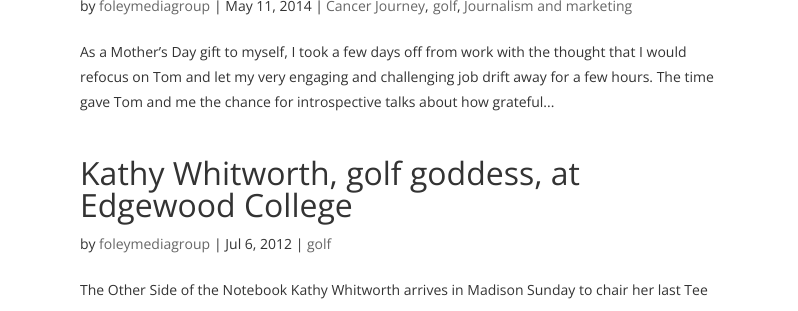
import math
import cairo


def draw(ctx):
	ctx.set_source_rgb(1, 1, 1)
	ctx.paint()
	ctx.select_font_face('Open Sans')
	ctx.set_font_size(14)
	ctx.set_source_rgb(0.2, 0.2, 0.2)
	ctx.move_to(80, 11)
	ctx.show_text('by')
	ctx.set_source_rgb(0.4, 0.4, 0.4)
	ctx.move_to(99, 11)
	ctx.show_text('foleymediagroup')
	ctx.set_source_rgb(0.2, 0.2, 0.2)
	ctx.move_to(214, 11)
	ctx.show_text('| May 11, 2014 |')
	ctx.set_source_rgb(0.4, 0.4, 0.4)
	ctx.move_to(326, 11)
	ctx.show_text('Cancer Journey')
	ctx.set_source_rgb(0.2, 0.2, 0.2)
	ctx.move_to(425, 11)
	ctx.show_text(',')
	ctx.set_source_rgb(0.4, 0.4, 0.4)
	ctx.move_to(433, 11)
	ctx.show_text('golf')
	ctx.set_source_rgb(0.2, 0.2, 0.2)
	ctx.move_to(457, 11)
	ctx.show_text(',')
	ctx.set_source_rgb(0.4, 0.4, 0.4)
	ctx.move_to(464, 11)
	ctx.show_text('Journalism and marketing')
	ctx.set_source_rgb(0.2, 0.2, 0.2)
	for x, y, s in [
		(80, 57, 'As a Mother’s Day gift to myself, I took a few days off from work with the thought that I would'),
		(80, 82, 'refocus on Tom and let my very engaging and challenging job drift away for a few hours. The time'),
		(80, 107, 'gave Tom and me the chance for introspective talks about how grateful...'),
	]:
		ctx.move_to(x, y)
		ctx.show_text(s)
	ctx.set_font_size(32)
	ctx.move_to(80, 185)
	ctx.show_text('Kathy Whitworth, golf goddess, at')
	ctx.move_to(80, 217)
	ctx.show_text('Edgewood College')
	ctx.set_font_size(14)
	ctx.move_to(80, 249)
	ctx.show_text('by')
	ctx.set_source_rgb(0.4, 0.4, 0.4)
	ctx.move_to(99, 249)
	ctx.show_text('foleymediagroup')
	ctx.set_source_rgb(0.2, 0.2, 0.2)
	ctx.move_to(214, 249)
	ctx.show_text('| Jul 6, 2012 |')
	ctx.set_source_rgb(0.4, 0.4, 0.4)
	ctx.move_to(307, 249)
	ctx.show_text('golf')
	ctx.set_source_rgb(0.2, 0.2, 0.2)
	ctx.move_to(80, 295)
	ctx.show_text('The Other Side of the Notebook Kathy Whitworth arrives in Madison Sunday to chair her last Tee')


surface = cairo.ImageSurface(cairo.FORMAT_RGB24, 798, 311)
ctx = cairo.Context(surface)
options = cairo.FontOptions()
options.set_hint_metrics(cairo.HINT_METRICS_OFF)
options.set_hint_style(cairo.HINT_STYLE_NONE)
ctx.set_font_options(options)
ctx.set_miter_limit(4)
draw(ctx)
surface.write_to_png('image.png')
